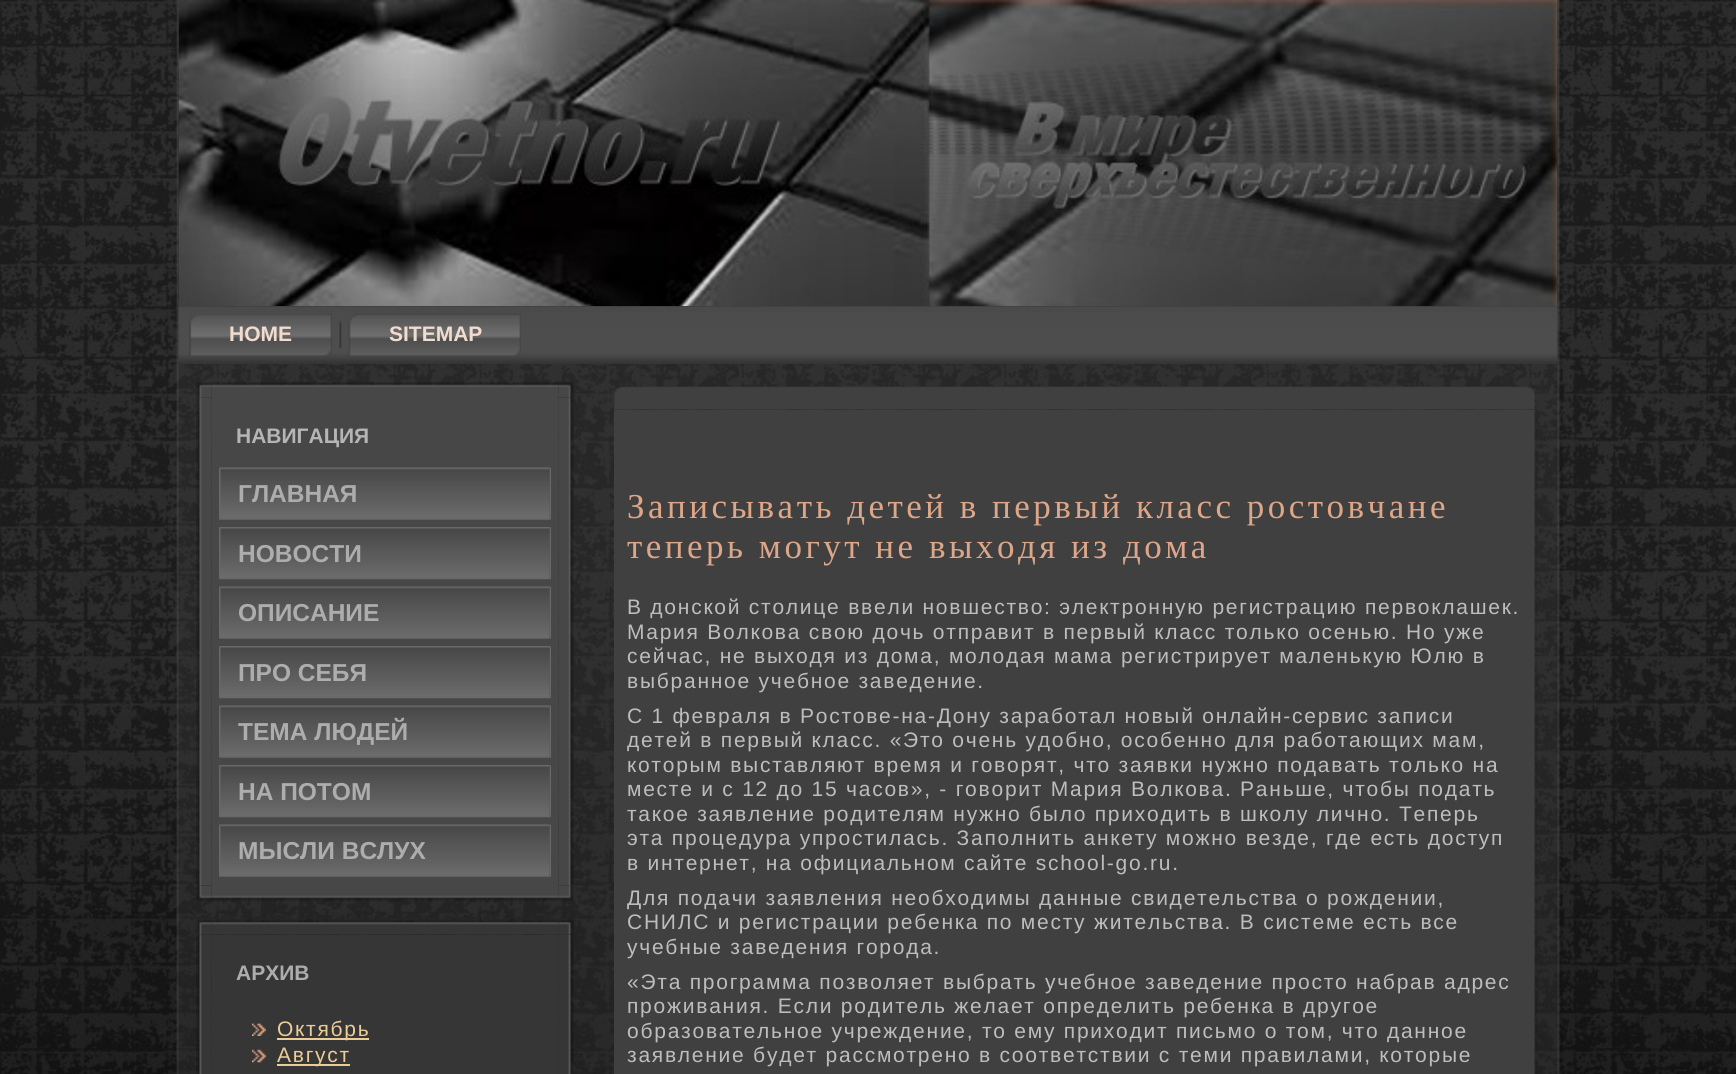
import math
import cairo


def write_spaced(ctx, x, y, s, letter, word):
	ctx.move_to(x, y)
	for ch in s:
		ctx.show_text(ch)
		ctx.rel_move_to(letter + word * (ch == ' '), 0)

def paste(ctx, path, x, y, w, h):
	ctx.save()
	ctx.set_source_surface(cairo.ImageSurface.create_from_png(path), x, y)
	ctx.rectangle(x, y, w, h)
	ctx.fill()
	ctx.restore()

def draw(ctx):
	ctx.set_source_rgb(1, 1, 1)
	ctx.paint()
	paste(ctx, 'media/1.png', 0, 0, 1736, 1074)
	paste(ctx, 'media/2.png', 176, 0, 3, 96)
	paste(ctx, 'media/3.png', 1557, 0, 6, 97)
	paste(ctx, 'media/4.png', 176, 96, 99, 978)
	ctx.set_source_rgba(0.216, 0.216, 0.216, 0.4)
	ctx.rectangle(275, 306, 1186, 768)
	ctx.fill()
	paste(ctx, 'media/5.png', 1461, 96, 102, 978)
	paste(ctx, 'media/6.png', 178, 0, 1380, 307)
	paste(ctx, 'media/7.png', 178, 306, 1380, 58)
	paste(ctx, 'media/8.png', 189, 315, 133, 41)
	paste(ctx, 'media/9.png', 322, 313, 10, 43)
	ctx.select_font_face('Liberation Sans', cairo.FONT_SLANT_NORMAL, cairo.FONT_WEIGHT_BOLD)
	ctx.set_font_size(21)
	ctx.set_source_rgb(0.949, 0.859, 0.812)
	ctx.move_to(229, 341)
	ctx.show_text('HOME')
	paste(ctx, 'media/10.png', 339, 321, 3, 28)
	paste(ctx, 'media/11.png', 348, 313, 163, 43)
	paste(ctx, 'media/9.png', 511, 313, 10, 43)
	ctx.move_to(389, 341)
	ctx.show_text('SITEMAP')
	paste(ctx, 'media/12.png', 196, 382, 16, 16)
	paste(ctx, 'media/13.png', 212, 382, 346, 15)
	paste(ctx, 'media/14.png', 558, 382, 16, 16)
	paste(ctx, 'media/21.png', 196, 885, 16, 16)
	paste(ctx, 'media/15.png', 196, 397, 16, 489)
	ctx.set_source_rgb(0.278, 0.278, 0.278)
	ctx.rectangle(212, 397, 346, 489)
	ctx.fill()
	paste(ctx, 'media/23.png', 558, 885, 16, 16)
	paste(ctx, 'media/16.png', 558, 397, 16, 489)
	ctx.set_source_rgb(0.71, 0.71, 0.71)
	ctx.move_to(236, 443)
	ctx.show_text('НАВИГАЦИЯ')
	paste(ctx, 'media/17.png', 219, 467, 331, 53)
	ctx.set_font_size(24.5)
	ctx.set_source_rgb(0.678, 0.678, 0.678)
	ctx.move_to(238, 502)
	ctx.show_text('ГЛАВНАЯ')
	paste(ctx, 'media/18.png', 549, 467, 2, 53)
	paste(ctx, 'media/19.png', 219, 527, 331, 53)
	ctx.move_to(238, 562)
	ctx.show_text('НОВΟСТИ')
	paste(ctx, 'media/20.png', 549, 527, 2, 53)
	paste(ctx, 'media/17.png', 219, 586, 331, 53)
	ctx.move_to(238, 621)
	ctx.show_text('ОПИСАНИЕ')
	paste(ctx, 'media/18.png', 549, 586, 2, 53)
	paste(ctx, 'media/19.png', 219, 646, 331, 53)
	ctx.move_to(238, 681)
	ctx.show_text('ПРΟ СЕБЯ')
	paste(ctx, 'media/20.png', 549, 646, 2, 53)
	paste(ctx, 'media/17.png', 219, 705, 331, 53)
	ctx.move_to(238, 740)
	ctx.show_text('ТЕМА ЛЮДЕЙ')
	paste(ctx, 'media/18.png', 549, 705, 2, 53)
	paste(ctx, 'media/19.png', 219, 765, 331, 53)
	ctx.move_to(238, 800)
	ctx.show_text('НА ПОТΟМ')
	paste(ctx, 'media/20.png', 549, 765, 2, 53)
	paste(ctx, 'media/17.png', 219, 824, 331, 53)
	ctx.move_to(238, 859)
	ctx.show_text('МЫСЛИ ВСЛУХ')
	paste(ctx, 'media/18.png', 549, 824, 2, 53)
	paste(ctx, 'media/22.png', 212, 886, 346, 15)
	paste(ctx, 'media/24.png', 196, 919, 16, 16)
	paste(ctx, 'media/25.png', 212, 919, 346, 16)
	paste(ctx, 'media/26.png', 558, 919, 16, 16)
	paste(ctx, 'media/27.png', 196, 934, 16, 140)
	ctx.set_source_rgb(0.212, 0.212, 0.212)
	ctx.rectangle(212, 935, 346, 139)
	ctx.fill()
	paste(ctx, 'media/28.png', 558, 934, 16, 140)
	ctx.set_font_size(21)
	ctx.set_source_rgb(0.678, 0.678, 0.678)
	ctx.move_to(236, 980)
	ctx.show_text('АРХИВ')
	paste(ctx, 'media/29.png', 252, 1023, 14, 13)
	ctx.set_source_rgb(0.925, 0.804, 0.596)
	ctx.rectangle(277, 1038, 92, 2)
	ctx.fill()
	ctx.select_font_face('Liberation Sans')
	write_spaced(ctx, 277, 1036, 'Октябрь', 1.75, 0)
	paste(ctx, 'media/30.png', 252, 1049, 14, 14)
	ctx.rectangle(277, 1064, 73, 2)
	ctx.fill()
	write_spaced(ctx, 277, 1062, 'Август', 1.75, 0)
	paste(ctx, 'media/31.png', 614, 386, 23, 24)
	paste(ctx, 'media/32.png', 637, 386, 875, 24)
	paste(ctx, 'media/33.png', 1512, 386, 23, 24)
	ctx.set_source_rgb(0.251, 0.251, 0.251)
	ctx.rectangle(614, 410, 898, 664)
	ctx.fill()
	paste(ctx, 'media/34.png', 1512, 410, 25, 664)
	ctx.select_font_face('Liberation Serif')
	ctx.set_font_size(35)
	ctx.set_source_rgb(0.867, 0.651, 0.533)
	write_spaced(ctx, 627, 518, 'Записывать детей в первый класс ростовчане', 3.5, 0)
	write_spaced(ctx, 627, 558, 'теперь могут не выходя из дома', 3.5, 0)
	ctx.select_font_face('Liberation Sans')
	ctx.set_font_size(21)
	ctx.set_source_rgb(0.741, 0.741, 0.741)
	for x, y, s in [
		(627, 614, 'В донской столице ввели новшество: электронную регистрацию первоклашек.'),
		(627, 639, 'Мария Волкова свою дочь отправит в первый класс только осенью. Но уже'),
		(627, 663, 'сейчас, не выходя из дома, молодая мама регистрирует маленькую Юлю в'),
		(627, 688, 'выбранное учебное заведение.'),
		(627, 723, 'С 1 февраля в Ростове-на-Дону заработал новый онлайн-сервис записи'),
		(627, 747, 'детей в первый класс. «Это очень удобно, особенно для работающих мам,'),
		(627, 772, 'которым выставляют время и говорят, что заявки нужно подавать только на'),
		(627, 796, 'месте и с 12 до 15 часов», - говорит Мария Волкова. Раньше, чтобы подать'),
		(627, 821, 'такое заявление родителям нужно было приходить в школу лично. Теперь'),
		(627, 845, 'эта процедура упростилась. Заполнить анкету можно везде, где есть доступ'),
		(627, 870, 'в интернет, на официальном сайте sсhool-go.ru.'),
		(627, 905, 'Для подачи заявления необходимы данные свидетельства о рождении,'),
		(627, 929, 'СНИЛС и регистрации ребенка по месту жительства. В системе есть все'),
		(627, 954, 'учебные заведения города.'),
		(627, 989, '«Эта программа позволяет выбрать учебное заведение просто набрав адрес'),
		(627, 1013, 'проживания. Если родитель желает определить ребенка в другое'),
		(627, 1038, 'образовательное учреждение, то ему приходит письмо о том, что данное'),
		(627, 1062, 'заявление будет рассмотрено в соответствии с теми правилами, которые'),
	]:
		write_spaced(ctx, x, y, s, 1.75, 0)


surface = cairo.ImageSurface(cairo.FORMAT_RGB24, 1736, 1074)
ctx = cairo.Context(surface)
options = cairo.FontOptions()
options.set_hint_metrics(cairo.HINT_METRICS_OFF)
options.set_hint_style(cairo.HINT_STYLE_NONE)
ctx.set_font_options(options)
ctx.set_miter_limit(4)
draw(ctx)
surface.write_to_png('image.png')
